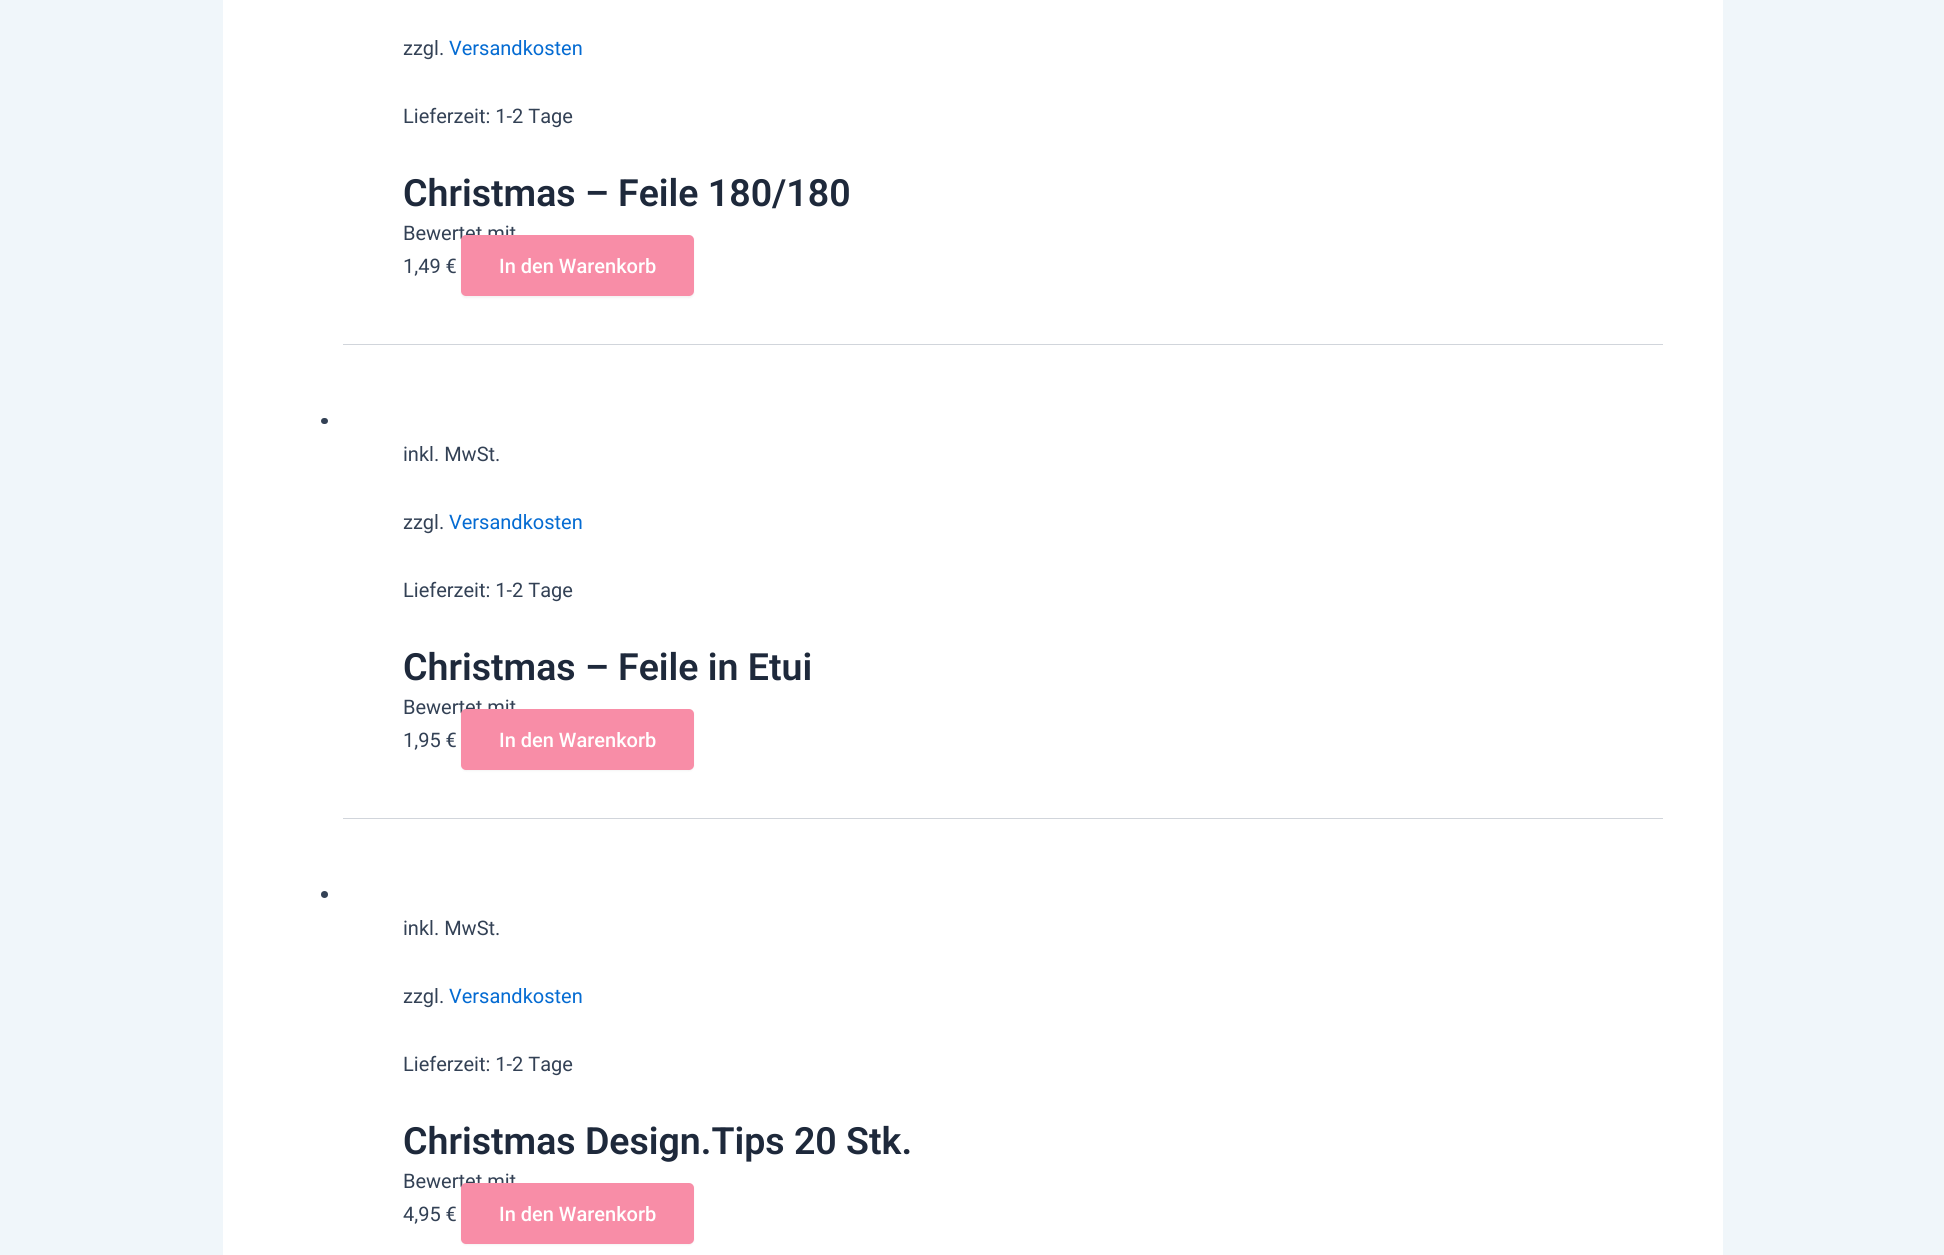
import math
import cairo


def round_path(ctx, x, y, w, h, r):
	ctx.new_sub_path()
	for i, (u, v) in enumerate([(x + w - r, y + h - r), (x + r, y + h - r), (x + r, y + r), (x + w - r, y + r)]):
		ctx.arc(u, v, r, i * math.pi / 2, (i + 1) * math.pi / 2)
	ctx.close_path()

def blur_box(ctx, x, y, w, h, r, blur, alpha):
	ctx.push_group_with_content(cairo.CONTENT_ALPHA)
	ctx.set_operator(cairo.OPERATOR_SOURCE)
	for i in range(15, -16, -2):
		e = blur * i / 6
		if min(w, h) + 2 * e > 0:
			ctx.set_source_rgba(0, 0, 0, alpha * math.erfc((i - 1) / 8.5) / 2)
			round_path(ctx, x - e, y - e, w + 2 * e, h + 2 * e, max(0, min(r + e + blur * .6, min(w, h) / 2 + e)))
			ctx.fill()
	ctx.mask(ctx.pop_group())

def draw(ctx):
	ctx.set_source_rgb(0.941, 0.961, 0.98)
	ctx.paint()
	ctx.set_source_rgb(1, 1, 1)
	ctx.rectangle(223, 0, 1500, 1255)
	ctx.fill()
	ctx.set_source_rgb(0.82, 0.835, 0.859)
	ctx.rectangle(343, 344, 1320, 1)
	ctx.fill()
	ctx.select_font_face('Roboto')
	ctx.set_font_size(20)
	ctx.set_source_rgb(0.2, 0.255, 0.333)
	ctx.move_to(403, 55)
	ctx.show_text('zzgl.')
	ctx.set_source_rgb(0.016, 0.42, 0.824)
	ctx.move_to(449, 55)
	ctx.show_text('Versandkosten')
	ctx.set_source_rgb(0.2, 0.255, 0.333)
	ctx.move_to(403, 123)
	ctx.show_text('Lieferzeit: 1-2 Tage')
	ctx.select_font_face('Roboto SemiBold')
	ctx.set_font_size(37.5)
	ctx.set_source_rgb(0.118, 0.161, 0.231)
	ctx.move_to(403, 206)
	ctx.show_text('Christmas – Feile 180/180')
	ctx.select_font_face('Roboto')
	ctx.set_font_size(20)
	ctx.set_source_rgb(0.2, 0.255, 0.333)
	ctx.move_to(403, 240)
	ctx.show_text('Bewertet mit')
	ctx.move_to(403, 273)
	ctx.show_text('1,49 €')
	ctx.set_source_rgb(0, 0, 0)
	blur_box(ctx, 461, 236, 233, 62, 5, 1, 0.05)
	ctx.set_source_rgb(0.969, 0.553, 0.655)
	round_path(ctx, 461, 235, 233, 61, 5)
	ctx.fill()
	ctx.select_font_face('Roboto Medium')
	ctx.set_source_rgb(1, 1, 1)
	ctx.move_to(499, 273)
	ctx.show_text('In den Warenkorb')
	ctx.set_source_rgb(0.82, 0.835, 0.859)
	ctx.rectangle(343, 818, 1320, 1)
	ctx.fill()
	ctx.set_source_rgb(0.2, 0.255, 0.333)
	round_path(ctx, 321, 418, 7, 6, 3)
	ctx.fill()
	ctx.select_font_face('Roboto')
	ctx.move_to(403, 461)
	ctx.show_text('inkl. MwSt.')
	ctx.move_to(403, 529)
	ctx.show_text('zzgl.')
	ctx.set_source_rgb(0.016, 0.42, 0.824)
	ctx.move_to(449, 529)
	ctx.show_text('Versandkosten')
	ctx.set_source_rgb(0.2, 0.255, 0.333)
	ctx.move_to(403, 597)
	ctx.show_text('Lieferzeit: 1-2 Tage')
	ctx.select_font_face('Roboto SemiBold')
	ctx.set_font_size(37.5)
	ctx.set_source_rgb(0.118, 0.161, 0.231)
	ctx.move_to(403, 680)
	ctx.show_text('Christmas – Feile in Etui')
	ctx.select_font_face('Roboto')
	ctx.set_font_size(20)
	ctx.set_source_rgb(0.2, 0.255, 0.333)
	ctx.move_to(403, 714)
	ctx.show_text('Bewertet mit')
	ctx.move_to(403, 747)
	ctx.show_text('1,95 €')
	ctx.set_source_rgb(0, 0, 0)
	blur_box(ctx, 461, 710, 233, 61, 5, 1, 0.05)
	ctx.set_source_rgb(0.969, 0.553, 0.655)
	round_path(ctx, 461, 709, 233, 61, 5)
	ctx.fill()
	ctx.select_font_face('Roboto Medium')
	ctx.set_source_rgb(1, 1, 1)
	ctx.move_to(499, 747)
	ctx.show_text('In den Warenkorb')
	ctx.set_source_rgb(0.2, 0.255, 0.333)
	ctx.new_path()
	ctx.arc(324.5, 894.5, 3.5, 0, 2 * math.pi)
	ctx.fill()
	ctx.select_font_face('Roboto')
	ctx.move_to(403, 935)
	ctx.show_text('inkl. MwSt.')
	ctx.move_to(403, 1003)
	ctx.show_text('zzgl.')
	ctx.set_source_rgb(0.016, 0.42, 0.824)
	ctx.move_to(449, 1003)
	ctx.show_text('Versandkosten')
	ctx.set_source_rgb(0.2, 0.255, 0.333)
	ctx.move_to(403, 1071)
	ctx.show_text('Lieferzeit: 1-2 Tage')
	ctx.select_font_face('Roboto SemiBold')
	ctx.set_font_size(37.5)
	ctx.set_source_rgb(0.118, 0.161, 0.231)
	ctx.move_to(403, 1154)
	ctx.show_text('Christmas Design.Tips 20 Stk.')
	ctx.select_font_face('Roboto')
	ctx.set_font_size(20)
	ctx.set_source_rgb(0.2, 0.255, 0.333)
	ctx.move_to(403, 1188)
	ctx.show_text('Bewertet mit')
	ctx.move_to(403, 1221)
	ctx.show_text('4,95 €')
	ctx.set_source_rgb(0, 0, 0)
	blur_box(ctx, 461, 1184, 233, 61, 5, 1, 0.05)
	ctx.set_source_rgb(0.969, 0.553, 0.655)
	round_path(ctx, 461, 1183, 233, 61, 5)
	ctx.fill()
	ctx.select_font_face('Roboto Medium')
	ctx.set_source_rgb(1, 1, 1)
	ctx.move_to(499, 1221)
	ctx.show_text('In den Warenkorb')


surface = cairo.ImageSurface(cairo.FORMAT_RGB24, 1944, 1255)
ctx = cairo.Context(surface)
options = cairo.FontOptions()
options.set_hint_metrics(cairo.HINT_METRICS_OFF)
options.set_hint_style(cairo.HINT_STYLE_NONE)
ctx.set_font_options(options)
ctx.set_miter_limit(4)
draw(ctx)
surface.write_to_png('image.png')
